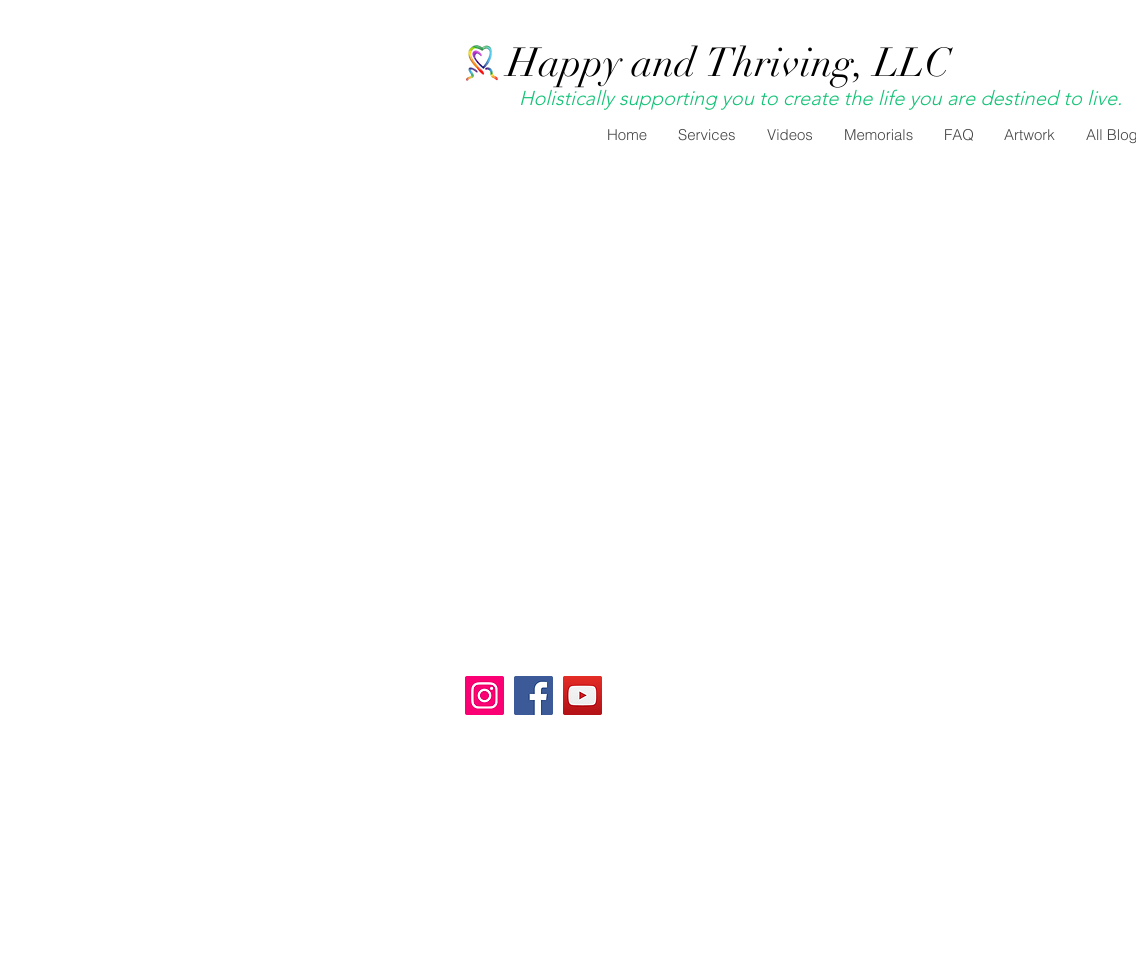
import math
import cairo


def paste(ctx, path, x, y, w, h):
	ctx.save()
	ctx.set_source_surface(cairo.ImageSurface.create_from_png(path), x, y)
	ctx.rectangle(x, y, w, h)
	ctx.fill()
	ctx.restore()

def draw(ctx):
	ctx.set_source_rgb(1, 1, 1)
	ctx.paint()
	paste(ctx, 'media/1.png', 466, 45, 32, 36)
	ctx.select_font_face('didot')
	ctx.set_font_size(40)
	ctx.set_source_rgb(0, 0, 0)
	ctx.move_to(507, 76)
	ctx.show_text('Happy and Thriving, LLC')
	ctx.select_font_face('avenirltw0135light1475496 Light', cairo.FONT_SLANT_ITALIC)
	ctx.set_font_size(20)
	ctx.set_source_rgb(0.075, 0.761, 0.463)
	ctx.move_to(519, 105)
	ctx.show_text('Holistically supporting you to create the life you are destined to live.')
	ctx.select_font_face('helvetica Light')
	ctx.set_font_size(15)
	ctx.set_source_rgb(0.267, 0.267, 0.267)
	for x, y, s in [
		(607, 140, 'Home'),
		(678, 140, 'Services'),
		(767, 140, 'Videos'),
		(844, 140, 'Memorials'),
		(944, 140, 'FAQ'),
		(1004, 140, 'Artwork'),
		(1086, 140, 'All Blog'),
	]:
		ctx.move_to(x, y)
		ctx.show_text(s)
	paste(ctx, 'media/2.png', 465, 676, 39, 39)
	paste(ctx, 'media/3.png', 514, 676, 39, 39)
	paste(ctx, 'media/4.png', 563, 676, 39, 39)


surface = cairo.ImageSurface(cairo.FORMAT_RGB24, 1136, 975)
ctx = cairo.Context(surface)
options = cairo.FontOptions()
options.set_hint_metrics(cairo.HINT_METRICS_OFF)
options.set_hint_style(cairo.HINT_STYLE_NONE)
ctx.set_font_options(options)
ctx.set_miter_limit(4)
draw(ctx)
surface.write_to_png('image.png')
